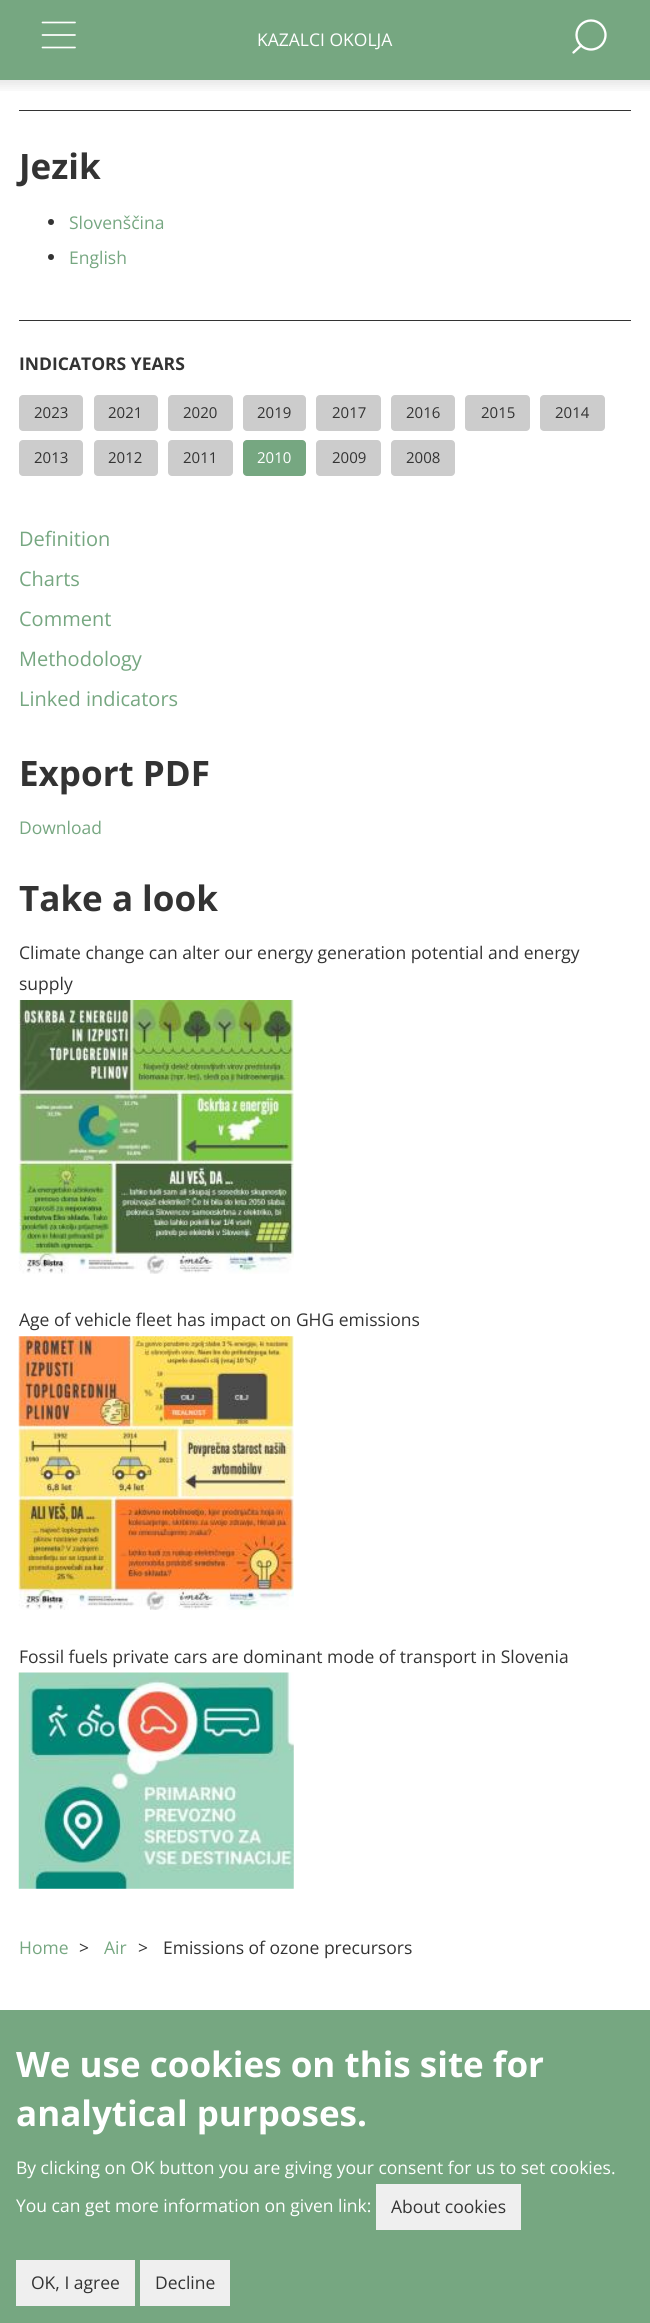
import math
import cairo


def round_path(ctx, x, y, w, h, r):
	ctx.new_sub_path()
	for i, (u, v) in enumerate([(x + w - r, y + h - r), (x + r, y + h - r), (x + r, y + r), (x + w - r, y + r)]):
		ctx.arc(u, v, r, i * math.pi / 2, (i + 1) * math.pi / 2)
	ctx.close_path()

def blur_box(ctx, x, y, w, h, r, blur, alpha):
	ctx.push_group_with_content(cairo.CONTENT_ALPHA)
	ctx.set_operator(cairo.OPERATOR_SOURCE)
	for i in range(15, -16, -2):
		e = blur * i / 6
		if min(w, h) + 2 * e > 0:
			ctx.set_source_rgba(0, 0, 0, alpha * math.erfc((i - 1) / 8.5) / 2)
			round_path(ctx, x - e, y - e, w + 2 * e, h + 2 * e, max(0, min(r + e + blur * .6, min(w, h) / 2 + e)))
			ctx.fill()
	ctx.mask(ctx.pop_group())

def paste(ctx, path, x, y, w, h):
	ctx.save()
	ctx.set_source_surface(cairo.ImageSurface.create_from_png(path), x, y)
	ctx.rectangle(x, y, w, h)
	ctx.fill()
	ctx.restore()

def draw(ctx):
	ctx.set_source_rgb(1, 1, 1)
	ctx.paint()
	ctx.set_source_rgb(0.463, 0.655, 0.506)
	ctx.rectangle(0, 0, 650, 80)
	ctx.fill()
	ctx.save()
	ctx.rectangle(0, 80, 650, 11)
	ctx.clip()
	ctx.set_source_rgb(0, 0, 0)
	blur_box(ctx, -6, -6, 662, 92, 0, 6, 0.1)
	ctx.restore()
	ctx.new_path()
	ctx.move_to(42.5, 22.5)
	ctx.line_to(75, 22.5)
	ctx.move_to(42.5, 35)
	ctx.line_to(75, 35)
	ctx.move_to(42.5, 47.5)
	ctx.line_to(75, 47.5)
	ctx.set_source_rgb(1, 1, 1)
	ctx.set_line_width(1.7)
	ctx.set_line_cap(cairo.LINE_CAP_ROUND)
	ctx.set_line_join(cairo.LINE_JOIN_ROUND)
	ctx.stroke()
	ctx.select_font_face('Open Sans')
	ctx.set_font_size(17.5)
	ctx.move_to(257, 46)
	ctx.show_text('KAZALCI OKOLJA')
	ctx.new_path()
	ctx.arc(591, 35, 14.5, 0, 2 * math.pi)
	ctx.set_line_width(2.3)
	ctx.set_line_cap(cairo.LINE_CAP_BUTT)
	ctx.set_line_join(cairo.LINE_JOIN_MITER)
	ctx.stroke()
	ctx.new_path()
	ctx.move_to(581, 45.5)
	ctx.line_to(573.5, 52.5)
	ctx.set_line_cap(cairo.LINE_CAP_ROUND)
	ctx.set_line_join(cairo.LINE_JOIN_ROUND)
	ctx.stroke()
	ctx.set_source_rgb(0.2, 0.2, 0.2)
	ctx.rectangle(19, 110, 612, 1)
	ctx.fill()
	ctx.select_font_face('Open Sans', cairo.FONT_SLANT_NORMAL, cairo.FONT_WEIGHT_BOLD)
	ctx.set_font_size(35)
	ctx.move_to(19, 179)
	ctx.show_text('Jezik')
	ctx.new_path()
	ctx.arc(51, 222, 3, 0, 2 * math.pi)
	ctx.fill()
	ctx.select_font_face('Open Sans')
	ctx.set_font_size(17.5)
	ctx.set_source_rgb(0.463, 0.655, 0.506)
	ctx.move_to(69, 229)
	ctx.show_text('Slovenščina')
	ctx.set_source_rgb(0.2, 0.2, 0.2)
	ctx.new_path()
	ctx.arc(51, 257, 3, 0, 2 * math.pi)
	ctx.fill()
	ctx.set_source_rgb(0.463, 0.655, 0.506)
	ctx.move_to(69, 264)
	ctx.show_text('English')
	ctx.set_source_rgb(0.2, 0.2, 0.2)
	ctx.rectangle(19, 320, 612, 1)
	ctx.fill()
	ctx.select_font_face('Open Sans', cairo.FONT_SLANT_NORMAL, cairo.FONT_WEIGHT_BOLD)
	ctx.move_to(19, 370)
	ctx.show_text('INDICATORS YEARS')
	ctx.set_source_rgb(0.8, 0.8, 0.8)
	round_path(ctx, 19, 395, 64, 36, 4)
	ctx.fill()
	ctx.select_font_face('Open Sans')
	ctx.set_font_size(15)
	ctx.set_source_rgb(0.2, 0.2, 0.2)
	ctx.move_to(34, 418)
	ctx.show_text('2023')
	ctx.set_source_rgb(0.8, 0.8, 0.8)
	round_path(ctx, 94, 395, 64, 36, 4)
	ctx.fill()
	ctx.set_source_rgb(0.2, 0.2, 0.2)
	ctx.move_to(108, 418)
	ctx.show_text('2021')
	ctx.set_source_rgb(0.8, 0.8, 0.8)
	round_path(ctx, 168, 395, 65, 36, 4)
	ctx.fill()
	ctx.set_source_rgb(0.2, 0.2, 0.2)
	ctx.move_to(183, 418)
	ctx.show_text('2020')
	ctx.set_source_rgb(0.8, 0.8, 0.8)
	round_path(ctx, 243, 395, 63, 36, 4)
	ctx.fill()
	ctx.set_source_rgb(0.2, 0.2, 0.2)
	ctx.move_to(257, 418)
	ctx.show_text('2019')
	ctx.set_source_rgb(0.8, 0.8, 0.8)
	round_path(ctx, 316, 395, 65, 36, 4)
	ctx.fill()
	ctx.set_source_rgb(0.2, 0.2, 0.2)
	ctx.move_to(332, 418)
	ctx.show_text('2017')
	ctx.set_source_rgb(0.8, 0.8, 0.8)
	round_path(ctx, 391, 395, 64, 36, 4)
	ctx.fill()
	ctx.set_source_rgb(0.2, 0.2, 0.2)
	ctx.move_to(406, 418)
	ctx.show_text('2016')
	ctx.set_source_rgb(0.8, 0.8, 0.8)
	round_path(ctx, 465, 395, 65, 36, 4)
	ctx.fill()
	ctx.set_source_rgb(0.2, 0.2, 0.2)
	ctx.move_to(481, 418)
	ctx.show_text('2015')
	ctx.set_source_rgb(0.8, 0.8, 0.8)
	round_path(ctx, 540, 395, 65, 36, 4)
	ctx.fill()
	ctx.set_source_rgb(0.2, 0.2, 0.2)
	ctx.move_to(555, 418)
	ctx.show_text('2014')
	ctx.set_source_rgb(0.8, 0.8, 0.8)
	round_path(ctx, 19, 440, 64, 36, 4)
	ctx.fill()
	ctx.set_source_rgb(0.2, 0.2, 0.2)
	ctx.move_to(34, 463)
	ctx.show_text('2013')
	ctx.set_source_rgb(0.8, 0.8, 0.8)
	round_path(ctx, 94, 440, 64, 36, 4)
	ctx.fill()
	ctx.set_source_rgb(0.2, 0.2, 0.2)
	ctx.move_to(108, 463)
	ctx.show_text('2012')
	ctx.set_source_rgb(0.8, 0.8, 0.8)
	round_path(ctx, 168, 440, 65, 36, 4)
	ctx.fill()
	ctx.set_source_rgb(0.2, 0.2, 0.2)
	ctx.move_to(183, 463)
	ctx.show_text('2011')
	ctx.set_source_rgb(0.463, 0.655, 0.506)
	round_path(ctx, 243, 440, 63, 36, 4)
	ctx.fill()
	ctx.set_source_rgb(1, 1, 1)
	ctx.move_to(257, 463)
	ctx.show_text('2010')
	ctx.set_source_rgb(0.8, 0.8, 0.8)
	round_path(ctx, 316, 440, 65, 36, 4)
	ctx.fill()
	ctx.set_source_rgb(0.2, 0.2, 0.2)
	ctx.move_to(332, 463)
	ctx.show_text('2009')
	ctx.set_source_rgb(0.8, 0.8, 0.8)
	round_path(ctx, 391, 440, 64, 36, 4)
	ctx.fill()
	ctx.set_source_rgb(0.2, 0.2, 0.2)
	ctx.move_to(406, 463)
	ctx.show_text('2008')
	ctx.set_font_size(20)
	ctx.set_source_rgb(0.463, 0.655, 0.506)
	for x, y, s in [
		(19, 546, 'Definition'),
		(19, 586, 'Charts'),
		(19, 626, 'Comment'),
		(19, 666, 'Methodology'),
		(19, 706, 'Linked indicators'),
	]:
		ctx.move_to(x, y)
		ctx.show_text(s)
	ctx.select_font_face('Open Sans', cairo.FONT_SLANT_NORMAL, cairo.FONT_WEIGHT_BOLD)
	ctx.set_font_size(35)
	ctx.set_source_rgb(0.2, 0.2, 0.2)
	ctx.move_to(19, 786)
	ctx.show_text('Export PDF')
	ctx.select_font_face('Open Sans')
	ctx.set_font_size(17.5)
	ctx.set_source_rgb(0.463, 0.655, 0.506)
	ctx.move_to(19, 834)
	ctx.show_text('Download')
	ctx.select_font_face('Open Sans', cairo.FONT_SLANT_NORMAL, cairo.FONT_WEIGHT_BOLD)
	ctx.set_font_size(35)
	ctx.set_source_rgb(0.2, 0.2, 0.2)
	ctx.move_to(19, 911)
	ctx.show_text('Take a look')
	ctx.select_font_face('Open Sans')
	ctx.set_font_size(17.5)
	ctx.move_to(19, 959)
	ctx.show_text('Climate change can alter our energy generation potential and energy')
	ctx.move_to(19, 990)
	ctx.show_text('supply')
	paste(ctx, 'media/1.png', 18, 1000, 276, 274)
	ctx.move_to(19, 1326)
	ctx.show_text('Age of vehicle fleet has impact on GHG emissions')
	paste(ctx, 'media/2.png', 18, 1336, 276, 274)
	ctx.move_to(19, 1663)
	ctx.show_text('Fossil fuels private cars are dominant mode of transport in Slovenia')
	paste(ctx, 'media/3.png', 18, 1672, 276, 217)
	ctx.set_source_rgb(0.463, 0.655, 0.506)
	ctx.move_to(19, 1954)
	ctx.show_text('Home')
	ctx.set_source_rgb(0.2, 0.2, 0.2)
	ctx.move_to(79, 1954)
	ctx.show_text('>')
	ctx.set_source_rgb(0.463, 0.655, 0.506)
	ctx.move_to(104, 1954)
	ctx.show_text('Air')
	ctx.set_source_rgb(0.2, 0.2, 0.2)
	ctx.move_to(138, 1954)
	ctx.show_text('>')
	ctx.move_to(163, 1954)
	ctx.show_text('Emissions of ozone precursors')
	ctx.set_source_rgb(0.463, 0.655, 0.506)
	ctx.rectangle(0, 2010, 650, 313)
	ctx.fill()
	ctx.select_font_face('Open Sans', cairo.FONT_SLANT_NORMAL, cairo.FONT_WEIGHT_BOLD)
	ctx.set_font_size(35)
	ctx.set_source_rgb(1, 1, 1)
	ctx.move_to(16, 2077)
	ctx.show_text('We use cookies on this site for')
	ctx.move_to(16, 2126)
	ctx.show_text('analytical purposes.')
	ctx.select_font_face('Open Sans')
	ctx.set_font_size(17.5)
	ctx.move_to(16, 2174)
	ctx.show_text('By clicking on OK button you are giving your consent for us to set cookies.')
	ctx.move_to(16, 2212)
	ctx.show_text('You can get more information on given link:')
	ctx.set_source_rgb(0.937, 0.937, 0.937)
	ctx.rectangle(376, 2184, 145, 46)
	ctx.fill()
	ctx.set_source_rgb(0.2, 0.2, 0.2)
	ctx.move_to(391, 2213)
	ctx.show_text('About cookies')
	ctx.set_source_rgb(0.937, 0.937, 0.937)
	ctx.rectangle(16, 2260, 119, 46)
	ctx.fill()
	ctx.set_source_rgb(0.2, 0.2, 0.2)
	ctx.move_to(31, 2289)
	ctx.show_text('OK, I agree')
	ctx.set_source_rgb(0.937, 0.937, 0.937)
	ctx.rectangle(140, 2260, 90, 46)
	ctx.fill()
	ctx.set_source_rgb(0.2, 0.2, 0.2)
	ctx.move_to(155, 2289)
	ctx.show_text('Decline')


surface = cairo.ImageSurface(cairo.FORMAT_RGB24, 650, 2323)
ctx = cairo.Context(surface)
options = cairo.FontOptions()
options.set_hint_metrics(cairo.HINT_METRICS_OFF)
options.set_hint_style(cairo.HINT_STYLE_NONE)
ctx.set_font_options(options)
ctx.set_miter_limit(4)
draw(ctx)
surface.write_to_png('image.png')
